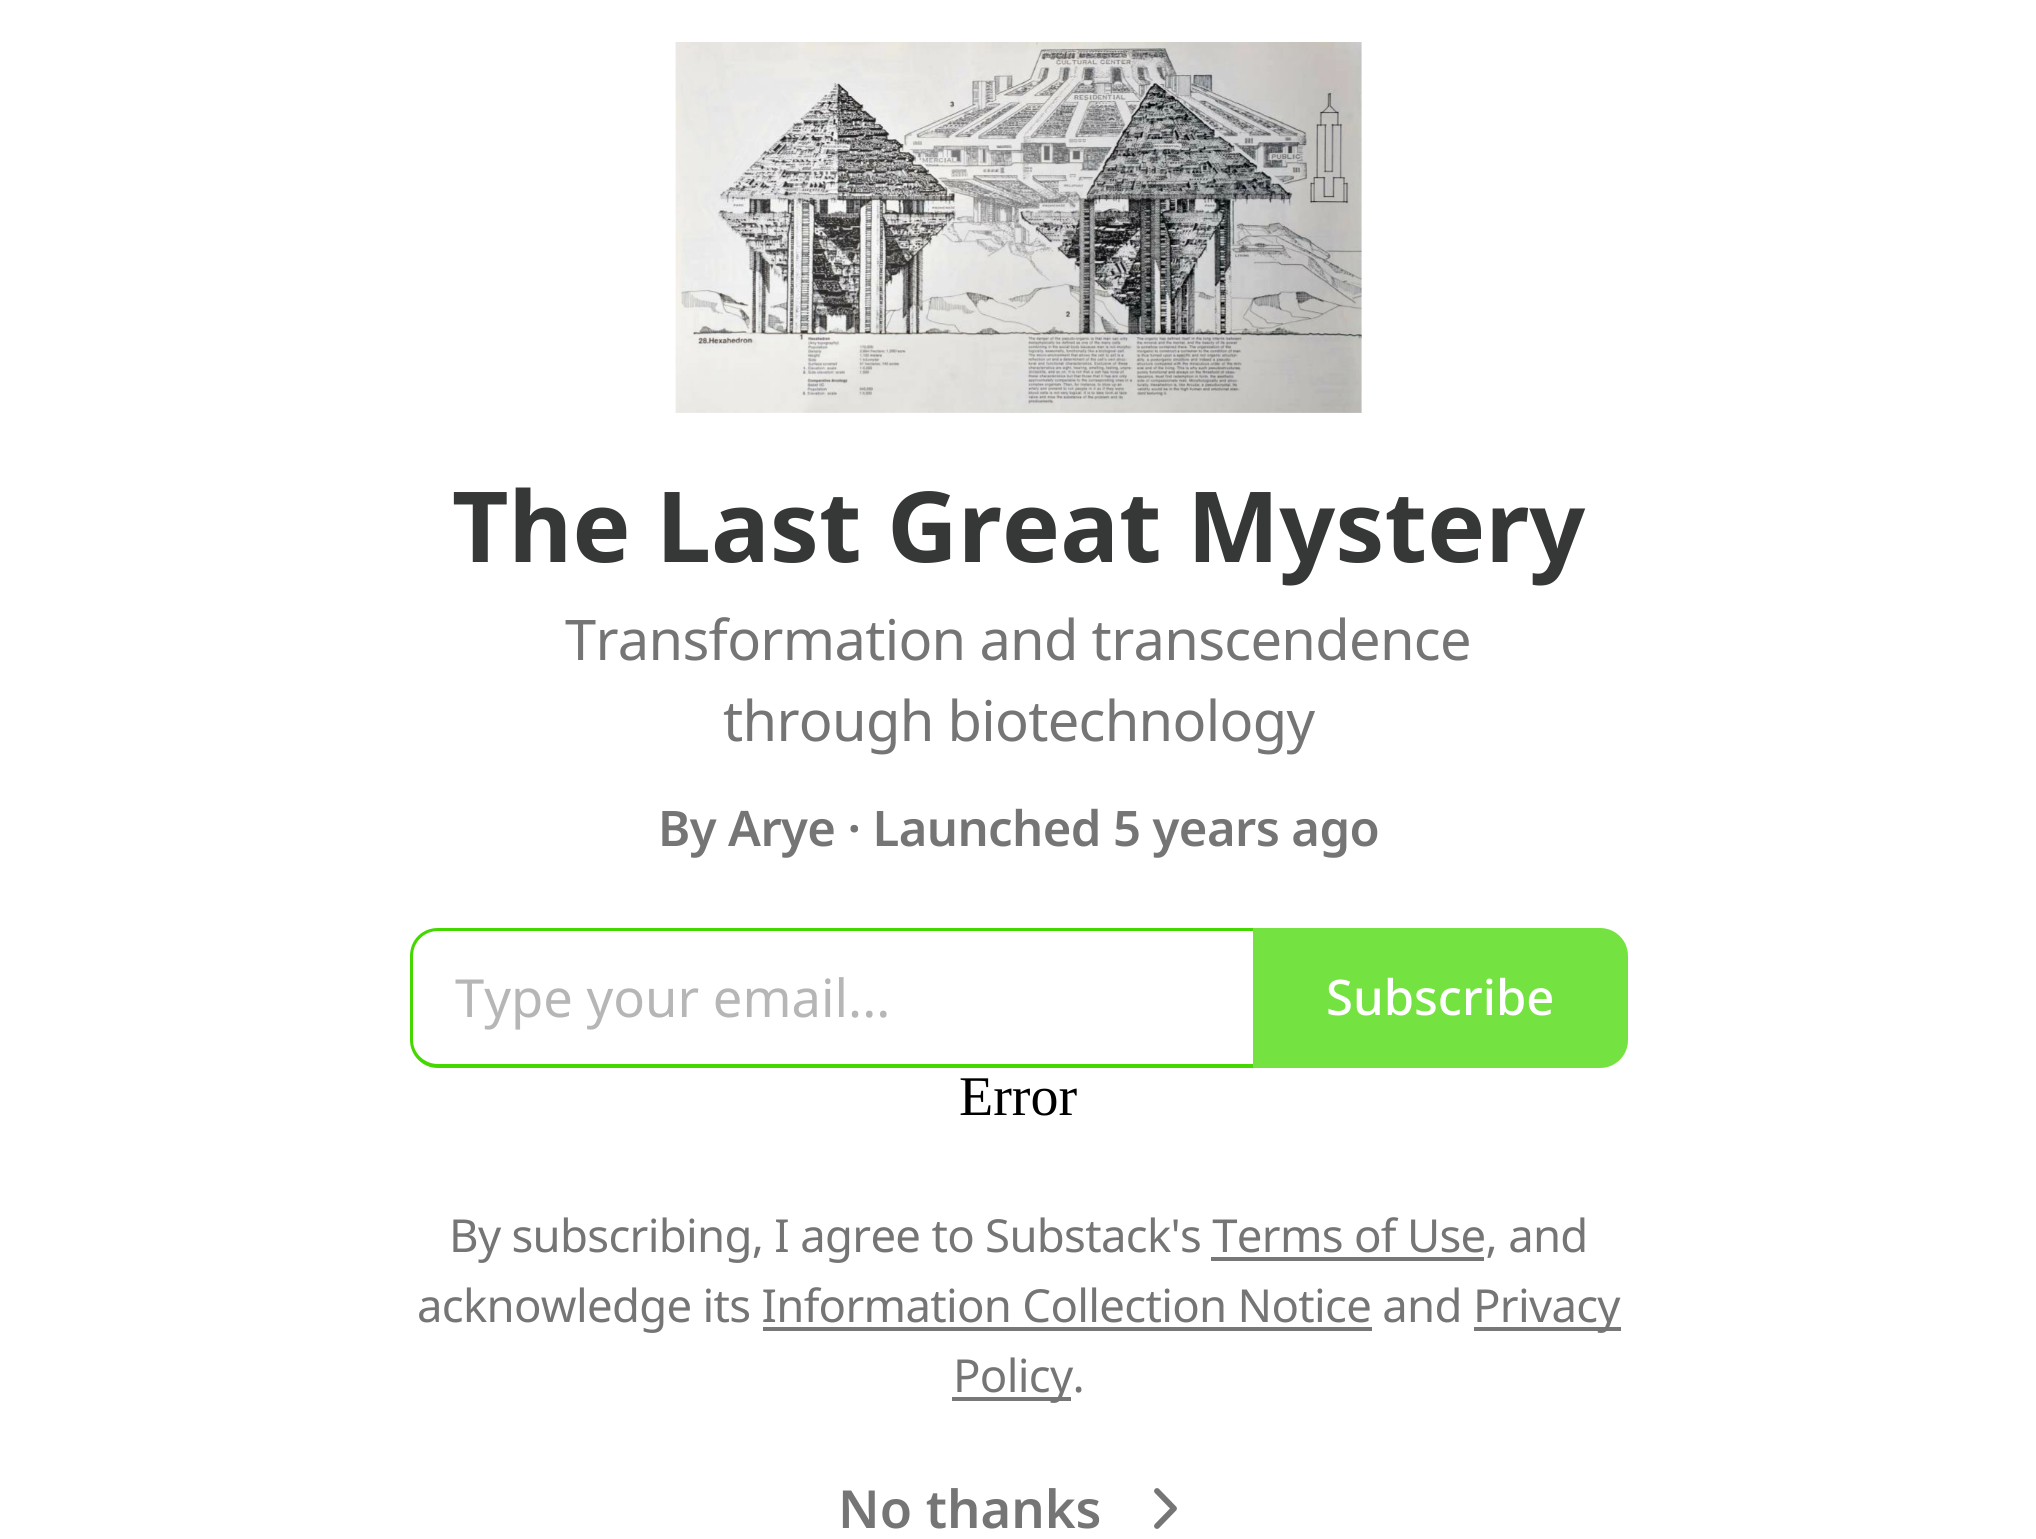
import math
import cairo


def write_spaced(ctx, x, y, s, letter, word):
	ctx.move_to(x, y)
	for ch in s:
		ctx.show_text(ch)
		ctx.rel_move_to(letter + word * (ch == ' '), 0)

def paste(ctx, path, x, y, w, h):
	ctx.save()
	ctx.set_source_surface(cairo.ImageSurface.create_from_png(path), x, y)
	ctx.rectangle(x, y, w, h)
	ctx.fill()
	ctx.restore()

def draw(ctx):
	ctx.set_source_rgb(1, 1, 1)
	ctx.paint()
	paste(ctx, 'media/1.png', 675, 42, 687, 371)
	ctx.select_font_face('Noto Sans', cairo.FONT_SLANT_NORMAL, cairo.FONT_WEIGHT_BOLD)
	ctx.set_font_size(98)
	ctx.set_source_rgb(0.212, 0.216, 0.216)
	ctx.move_to(452, 562)
	ctx.show_text('The Last Great Mystery')
	ctx.select_font_face('Noto Sans')
	ctx.set_font_size(56)
	ctx.set_source_rgb(0.459, 0.459, 0.459)
	write_spaced(ctx, 565, 660, 'Transformation and transcendence', -0.7, 0)
	write_spaced(ctx, 723, 741, 'through biotechnology', -0.7, 0)
	ctx.select_font_face('Noto Sans SemiBold')
	ctx.set_font_size(49)
	write_spaced(ctx, 658, 846, 'By Arye · Launched 5 years ago', -0.6, 0)
	ctx.set_source_rgb(0.271, 0.847, 0)
	ctx.set_fill_rule(cairo.FILL_RULE_EVEN_ODD)
	ctx.new_path()
	ctx.move_to(438, 928)
	ctx.line_to(1253, 928)
	ctx.line_to(1253, 1068)
	ctx.line_to(438, 1068)
	ctx.curve_to(422, 1068, 410, 1055, 410, 1040)
	ctx.line_to(410, 956)
	ctx.curve_to(410, 940, 422, 928, 438, 928)
	ctx.close_path()
	ctx.move_to(438, 931)
	ctx.line_to(1253, 931)
	ctx.line_to(1253, 1064)
	ctx.line_to(438, 1064)
	ctx.curve_to(424, 1064, 413, 1053, 413, 1040)
	ctx.line_to(413, 956)
	ctx.curve_to(413, 942, 424, 931, 438, 931)
	ctx.close_path()
	ctx.fill()
	ctx.select_font_face('Noto Sans')
	ctx.set_font_size(52.5)
	ctx.set_source_rgb(0.714, 0.714, 0.714)
	ctx.move_to(455, 1017)
	ctx.show_text('Type your email...')
	ctx.set_source_rgb(0.455, 0.886, 0.251)
	ctx.new_path()
	ctx.move_to(1255, 930)
	ctx.line_to(1600, 930)
	ctx.curve_to(1614.5, 930, 1626, 941.5, 1626, 956)
	ctx.line_to(1626, 1040)
	ctx.curve_to(1626, 1054.5, 1614.5, 1066, 1600, 1066)
	ctx.line_to(1255, 1066)
	ctx.close_path()
	ctx.fill_preserve()
	ctx.set_line_width(4)
	ctx.stroke()
	ctx.select_font_face('Noto Sans Medium')
	ctx.set_font_size(49)
	ctx.set_source_rgb(1, 1, 1)
	ctx.move_to(1326, 1015)
	ctx.show_text('Subscribe')
	ctx.select_font_face('Liberation Serif')
	ctx.set_font_size(56)
	ctx.set_source_rgb(0, 0, 0)
	ctx.move_to(959, 1115)
	ctx.show_text('Error')
	ctx.select_font_face('Noto Sans')
	ctx.set_font_size(45.5)
	ctx.set_source_rgb(0.459, 0.459, 0.459)
	write_spaced(ctx, 449, 1252, 'By subscribing, I agree to Substack\'s Terms of Use, and', -0.7, 0)
	ctx.set_source_rgb(0.467, 0.467, 0.467)
	ctx.rectangle(1211, 1257, 273, 4)
	ctx.fill()
	ctx.set_source_rgb(0.459, 0.459, 0.459)
	write_spaced(ctx, 417, 1322, 'acknowledge its Information Collection Notice and', -0.7, 0)
	ctx.set_source_rgb(0.467, 0.467, 0.467)
	ctx.rectangle(1474, 1327, 147, 4)
	ctx.fill()
	ctx.set_source_rgb(0.459, 0.459, 0.459)
	write_spaced(ctx, 1473, 1322, 'Privacy', -0.7, 0)
	ctx.set_source_rgb(0.467, 0.467, 0.467)
	ctx.rectangle(763, 1327, 609, 4)
	ctx.fill()
	ctx.rectangle(952, 1397, 119, 4)
	ctx.fill()
	ctx.set_source_rgb(0.459, 0.459, 0.459)
	write_spaced(ctx, 953, 1392, 'Policy.', -0.7, 0)
	ctx.select_font_face('Noto Sans SemiBold')
	ctx.set_font_size(52.5)
	ctx.move_to(838, 1528)
	ctx.show_text('No thanks')
	ctx.new_path()
	ctx.move_to(1157, 1526)
	ctx.line_to(1174, 1508.5)
	ctx.line_to(1157, 1491)
	ctx.set_line_width(5.8)
	ctx.set_line_cap(cairo.LINE_CAP_ROUND)
	ctx.set_line_join(cairo.LINE_JOIN_ROUND)
	ctx.stroke()


surface = cairo.ImageSurface(cairo.FORMAT_RGB24, 2036, 1539)
ctx = cairo.Context(surface)
options = cairo.FontOptions()
options.set_hint_metrics(cairo.HINT_METRICS_OFF)
options.set_hint_style(cairo.HINT_STYLE_NONE)
ctx.set_font_options(options)
ctx.set_miter_limit(4)
draw(ctx)
surface.write_to_png('image.png')
